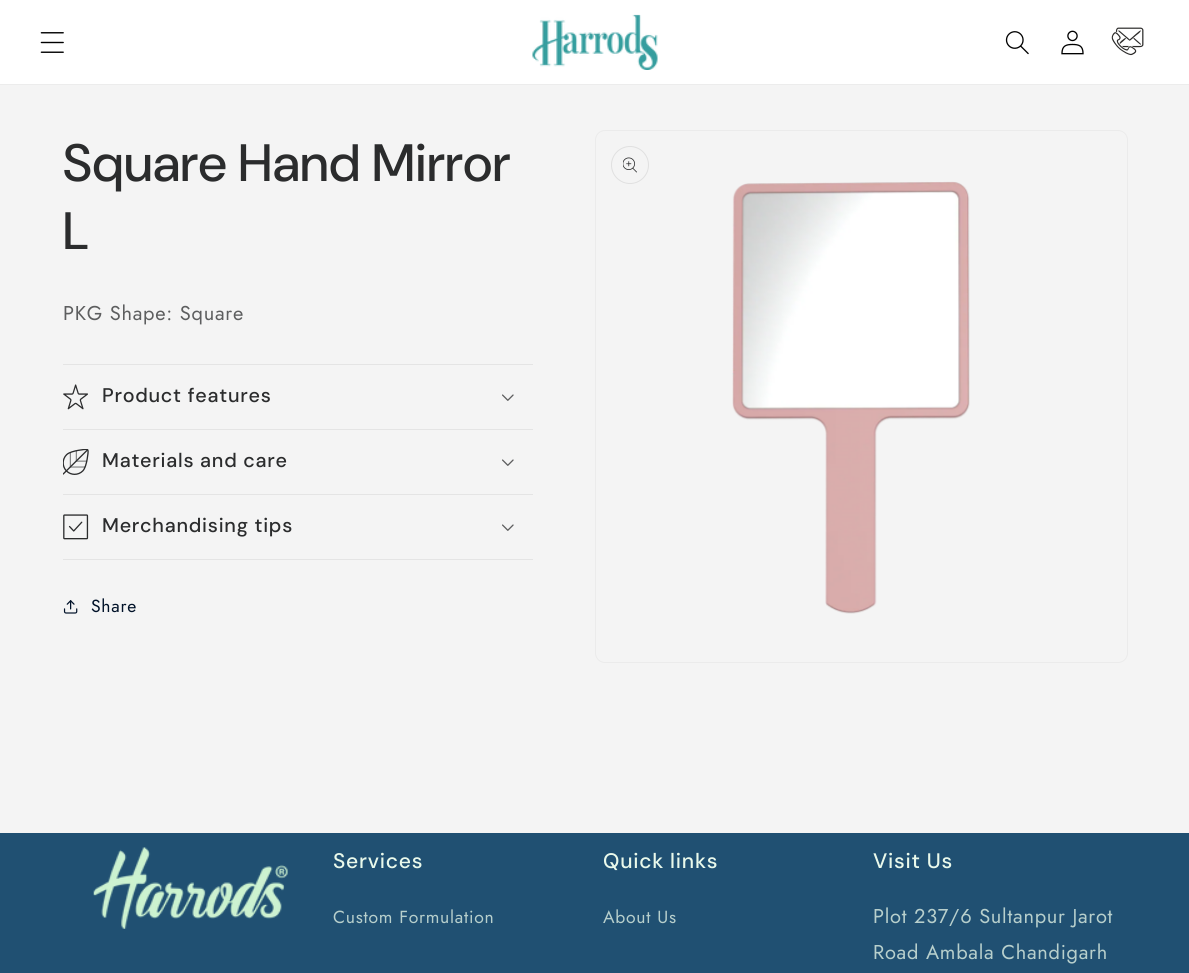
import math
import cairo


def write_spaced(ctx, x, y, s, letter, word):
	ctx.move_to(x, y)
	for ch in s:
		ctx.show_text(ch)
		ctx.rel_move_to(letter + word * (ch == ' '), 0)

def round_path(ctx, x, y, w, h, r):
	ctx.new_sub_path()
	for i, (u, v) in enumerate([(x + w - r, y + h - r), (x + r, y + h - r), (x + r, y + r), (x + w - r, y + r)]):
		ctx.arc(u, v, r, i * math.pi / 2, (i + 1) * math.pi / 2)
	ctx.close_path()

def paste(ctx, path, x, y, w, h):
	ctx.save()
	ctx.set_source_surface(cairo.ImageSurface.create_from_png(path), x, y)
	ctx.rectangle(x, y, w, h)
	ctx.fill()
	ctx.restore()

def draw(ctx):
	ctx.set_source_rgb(0.957, 0.957, 0.957)
	ctx.paint()
	ctx.set_source_rgb(1, 1, 1)
	ctx.rectangle(0, 0, 1189, 84)
	ctx.fill()
	ctx.set_source_rgb(0.922, 0.922, 0.922)
	ctx.rectangle(0, 84, 1189, 1)
	ctx.fill()
	paste(ctx, 'media/1.png', 40, 32, 24, 21)
	paste(ctx, 'media/2.png', 532, 14, 126, 56)
	paste(ctx, 'media/3.png', 1005, 31, 24, 24)
	paste(ctx, 'media/4.png', 1061, 30, 23, 25)
	paste(ctx, 'media/5.png', 1111, 27, 33, 29)
	ctx.select_font_face('DM Sans Medium')
	ctx.set_font_size(52.5)
	ctx.set_source_rgb(0.169, 0.173, 0.176)
	write_spaced(ctx, 63, 181, 'Square Hand Mirror', 0.75, 0)
	write_spaced(ctx, 63, 249, 'L', 0.75, 0)
	ctx.select_font_face('Jost')
	ctx.set_font_size(20)
	ctx.set_source_rgb(0.365, 0.369, 0.373)
	write_spaced(ctx, 63, 320, 'PKG Shape: Square', 0.75, 0)
	ctx.set_source_rgb(0.894, 0.894, 0.894)
	ctx.rectangle(63, 364, 470, 1)
	ctx.fill()
	ctx.rectangle(63, 429, 470, 1)
	ctx.fill()
	paste(ctx, 'media/6.png', 63, 384, 25, 26)
	ctx.select_font_face('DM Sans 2 Medium')
	ctx.set_font_size(19.75)
	ctx.set_source_rgb(0.169, 0.173, 0.176)
	write_spaced(ctx, 102, 402, 'Product features', 0.75, 0)
	paste(ctx, 'media/7.png', 502, 394, 12, 7)
	ctx.set_source_rgb(0.894, 0.894, 0.894)
	ctx.rectangle(63, 494, 470, 1)
	ctx.fill()
	paste(ctx, 'media/8.png', 63, 449, 26, 26)
	ctx.set_source_rgb(0.169, 0.173, 0.176)
	write_spaced(ctx, 102, 467, 'Materials and care', 0.75, 0)
	paste(ctx, 'media/7.png', 502, 459, 12, 7)
	ctx.set_source_rgb(0.894, 0.894, 0.894)
	ctx.rectangle(63, 559, 470, 1)
	ctx.fill()
	paste(ctx, 'media/9.png', 63, 514, 26, 26)
	ctx.set_source_rgb(0.169, 0.173, 0.176)
	write_spaced(ctx, 102, 532, 'Merchandising tips', 0.75, 0)
	paste(ctx, 'media/7.png', 502, 524, 12, 7)
	paste(ctx, 'media/10.png', 63, 600, 15, 14)
	ctx.select_font_face('Jost')
	ctx.set_font_size(17.5)
	ctx.set_source_rgb(0, 0.067, 0.157)
	write_spaced(ctx, 91, 612, 'Share', 0.75, 0)
	round_path(ctx, 595.5, 130.5, 532, 532, 9.5)
	ctx.set_source_rgb(0.918, 0.918, 0.918)
	ctx.set_line_width(1)
	ctx.stroke()
	ctx.arc(630, 165, 18.5, 0, 2 * math.pi)
	ctx.set_source_rgb(0.878, 0.878, 0.878)
	ctx.stroke()
	paste(ctx, 'media/11.png', 623, 157, 14, 16)
	paste(ctx, 'media/12.png', 732, 181, 238, 433)
	ctx.set_source_rgb(0.125, 0.314, 0.447)
	ctx.rectangle(0, 833, 1189, 140)
	ctx.fill()
	paste(ctx, 'media/13.png', 93, 847, 195, 82)
	ctx.select_font_face('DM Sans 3 Medium')
	ctx.set_font_size(21)
	ctx.set_source_rgb(0.914, 0.976, 0.918)
	write_spaced(ctx, 333, 868, 'Services', 0.75, 0)
	ctx.select_font_face('Jost')
	ctx.set_font_size(17.5)
	ctx.set_source_rgb(0.718, 0.812, 0.8)
	write_spaced(ctx, 333, 923, 'Custom Formulation', 0.75, 0)
	ctx.select_font_face('DM Sans 3 Medium')
	ctx.set_font_size(21)
	ctx.set_source_rgb(0.914, 0.976, 0.918)
	write_spaced(ctx, 603, 868, 'Quick links', 0.75, 0)
	ctx.select_font_face('Jost')
	ctx.set_font_size(17.5)
	ctx.set_source_rgb(0.718, 0.812, 0.8)
	write_spaced(ctx, 603, 923, 'About Us', 0.75, 0)
	ctx.select_font_face('DM Sans 3 Medium')
	ctx.set_font_size(21)
	ctx.set_source_rgb(0.914, 0.976, 0.918)
	write_spaced(ctx, 873, 868, 'Visit Us', 0.75, 0)
	ctx.select_font_face('Jost')
	ctx.set_font_size(20)
	ctx.set_source_rgb(0.718, 0.812, 0.8)
	write_spaced(ctx, 873, 923, 'Plot 237/6 Sultanpur Jarot', 0.75, 0)
	write_spaced(ctx, 873, 959, 'Road Ambala Chandigarh', 0.75, 0)


surface = cairo.ImageSurface(cairo.FORMAT_RGB24, 1189, 973)
ctx = cairo.Context(surface)
options = cairo.FontOptions()
options.set_hint_metrics(cairo.HINT_METRICS_OFF)
options.set_hint_style(cairo.HINT_STYLE_NONE)
ctx.set_font_options(options)
ctx.set_miter_limit(4)
draw(ctx)
surface.write_to_png('image.png')
